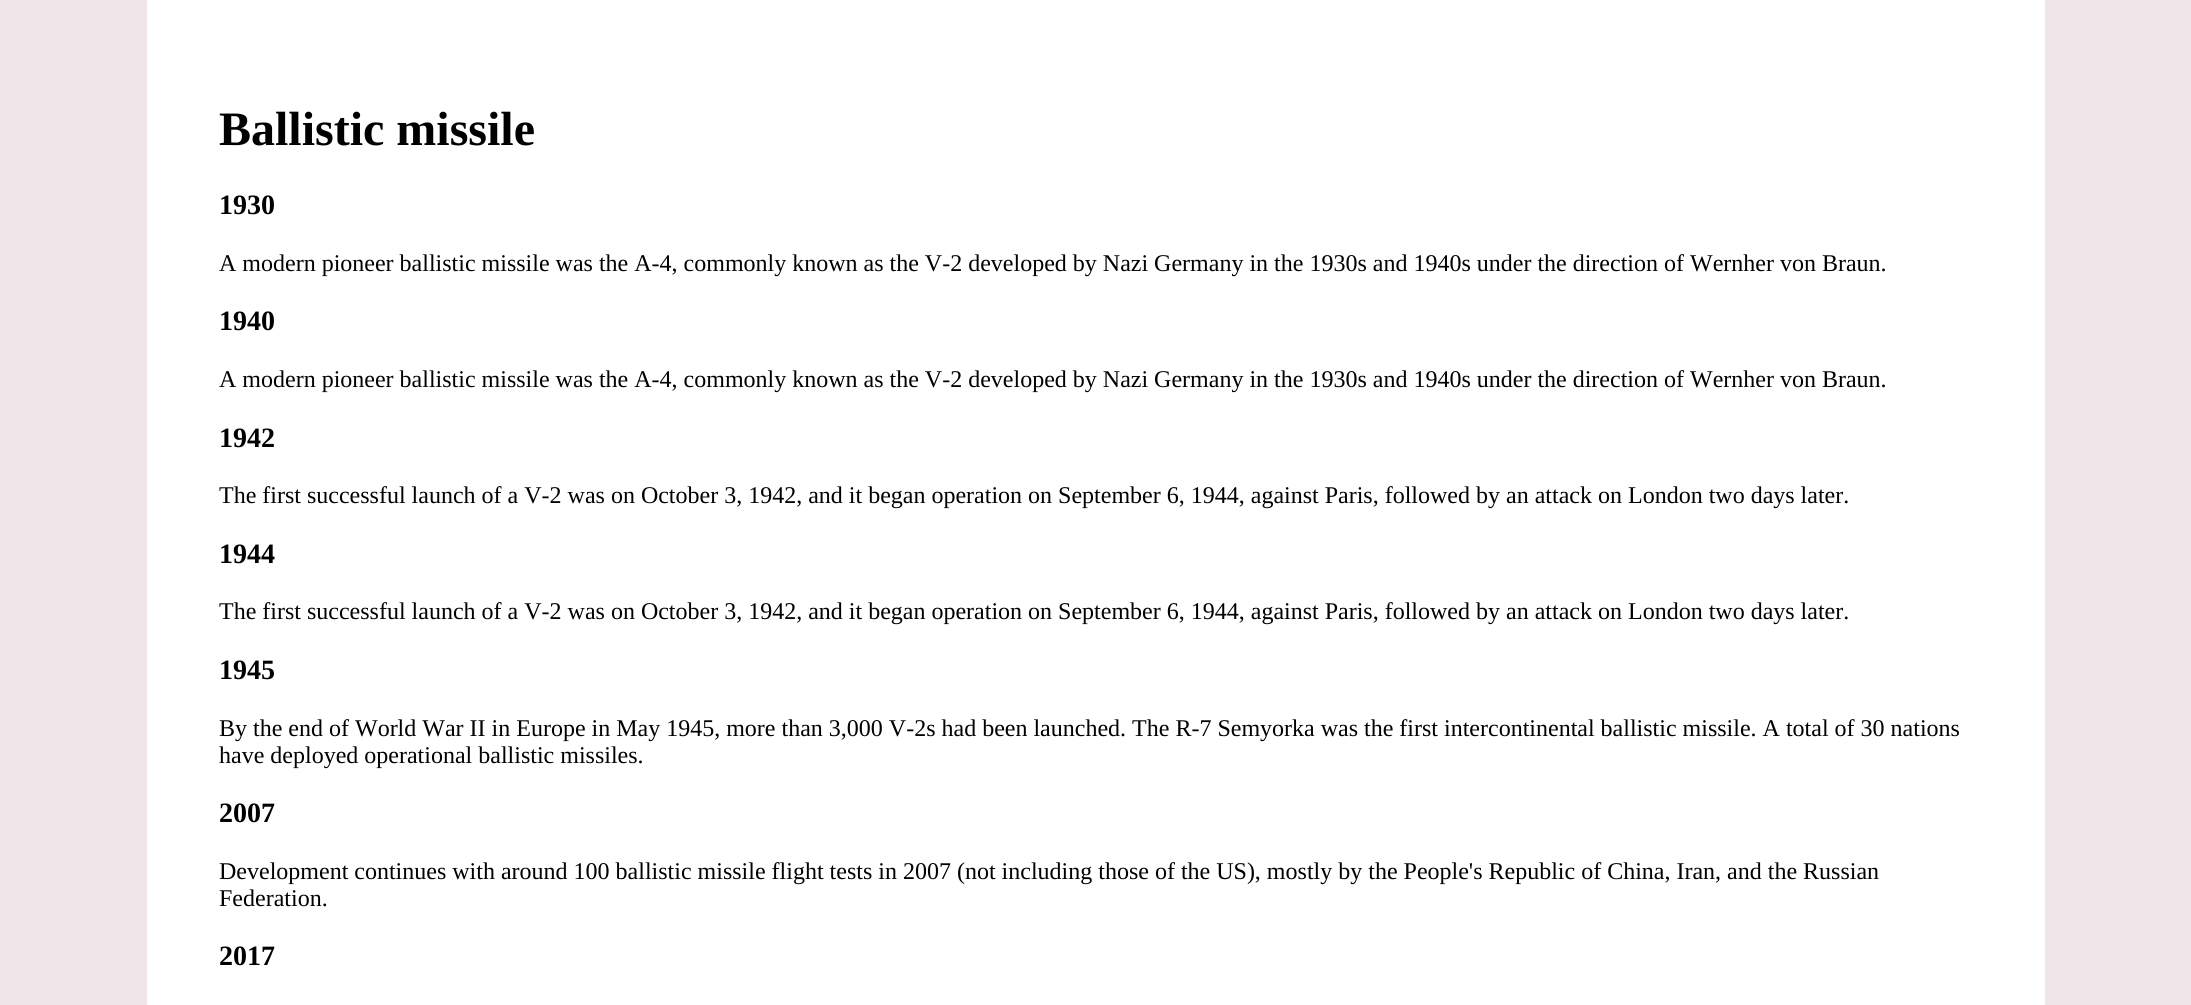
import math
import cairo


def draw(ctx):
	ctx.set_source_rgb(0.937, 0.894, 0.91)
	ctx.paint()
	ctx.set_source_rgb(1, 1, 1)
	ctx.rectangle(147, 0, 1898, 1005)
	ctx.fill()
	ctx.select_font_face('Liberation Serif', cairo.FONT_SLANT_NORMAL, cairo.FONT_WEIGHT_BOLD)
	ctx.set_font_size(48)
	ctx.set_source_rgb(0, 0, 0)
	ctx.move_to(219, 145)
	ctx.show_text('Ballistic missile')
	ctx.set_font_size(28)
	ctx.move_to(219, 214)
	ctx.show_text('1930')
	ctx.select_font_face('Liberation Serif')
	ctx.set_font_size(24)
	ctx.move_to(219, 271)
	ctx.show_text('A modern pioneer ballistic missile was the A-4, commonly known as the V-2 developed by Nazi Germany in the 1930s and 1940s under the direction of Wernher von Braun.')
	ctx.select_font_face('Liberation Serif', cairo.FONT_SLANT_NORMAL, cairo.FONT_WEIGHT_BOLD)
	ctx.set_font_size(28)
	ctx.move_to(219, 330)
	ctx.show_text('1940')
	ctx.select_font_face('Liberation Serif')
	ctx.set_font_size(24)
	ctx.move_to(219, 387)
	ctx.show_text('A modern pioneer ballistic missile was the A-4, commonly known as the V-2 developed by Nazi Germany in the 1930s and 1940s under the direction of Wernher von Braun.')
	ctx.select_font_face('Liberation Serif', cairo.FONT_SLANT_NORMAL, cairo.FONT_WEIGHT_BOLD)
	ctx.set_font_size(28)
	ctx.move_to(219, 447)
	ctx.show_text('1942')
	ctx.select_font_face('Liberation Serif')
	ctx.set_font_size(24)
	ctx.move_to(219, 503)
	ctx.show_text('The first successful launch of a V-2 was on October 3, 1942, and it began operation on September 6, 1944, against Paris, followed by an attack on London two days later.')
	ctx.select_font_face('Liberation Serif', cairo.FONT_SLANT_NORMAL, cairo.FONT_WEIGHT_BOLD)
	ctx.set_font_size(28)
	ctx.move_to(219, 563)
	ctx.show_text('1944')
	ctx.select_font_face('Liberation Serif')
	ctx.set_font_size(24)
	ctx.move_to(219, 619)
	ctx.show_text('The first successful launch of a V-2 was on October 3, 1942, and it began operation on September 6, 1944, against Paris, followed by an attack on London two days later.')
	ctx.select_font_face('Liberation Serif', cairo.FONT_SLANT_NORMAL, cairo.FONT_WEIGHT_BOLD)
	ctx.set_font_size(28)
	ctx.move_to(219, 679)
	ctx.show_text('1945')
	ctx.select_font_face('Liberation Serif')
	ctx.set_font_size(24)
	ctx.move_to(219, 736)
	ctx.show_text('By the end of World War II in Europe in May 1945, more than 3,000 V-2s had been launched. The R-7 Semyorka was the first intercontinental ballistic missile. A total of 30 nations')
	ctx.move_to(219, 763)
	ctx.show_text('have deployed operational ballistic missiles.')
	ctx.select_font_face('Liberation Serif', cairo.FONT_SLANT_NORMAL, cairo.FONT_WEIGHT_BOLD)
	ctx.set_font_size(28)
	ctx.move_to(219, 822)
	ctx.show_text('2007')
	ctx.select_font_face('Liberation Serif')
	ctx.set_font_size(24)
	ctx.move_to(219, 879)
	ctx.show_text('Development continues with around 100 ballistic missile flight tests in 2007 (not including those of the US), mostly by the People\'s Republic of China, Iran, and the Russian')
	ctx.move_to(219, 906)
	ctx.show_text('Federation.')
	ctx.select_font_face('Liberation Serif', cairo.FONT_SLANT_NORMAL, cairo.FONT_WEIGHT_BOLD)
	ctx.set_font_size(28)
	ctx.move_to(219, 965)
	ctx.show_text('2017')


surface = cairo.ImageSurface(cairo.FORMAT_RGB24, 2191, 1005)
ctx = cairo.Context(surface)
options = cairo.FontOptions()
options.set_hint_metrics(cairo.HINT_METRICS_OFF)
options.set_hint_style(cairo.HINT_STYLE_NONE)
ctx.set_font_options(options)
ctx.set_miter_limit(4)
draw(ctx)
surface.write_to_png('image.png')
